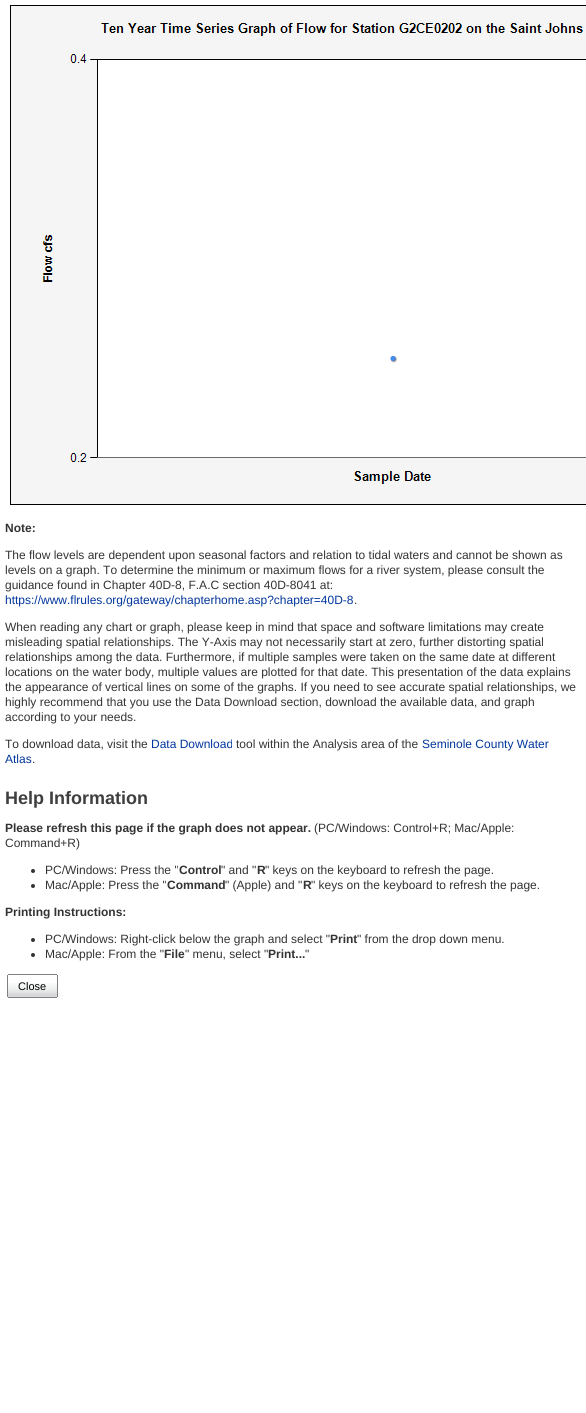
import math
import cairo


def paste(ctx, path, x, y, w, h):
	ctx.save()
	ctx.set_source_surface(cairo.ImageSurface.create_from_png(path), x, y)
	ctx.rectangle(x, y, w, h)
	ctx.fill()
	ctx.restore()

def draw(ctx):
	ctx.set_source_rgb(1, 1, 1)
	ctx.paint()
	paste(ctx, 'media/1.png', 10, 5, 576, 500)
	ctx.select_font_face('Liberation Sans', cairo.FONT_SLANT_NORMAL, cairo.FONT_WEIGHT_BOLD)
	ctx.set_font_size(12)
	ctx.set_source_rgb(0.2, 0.2, 0.2)
	ctx.move_to(5, 532)
	ctx.show_text('Note:')
	ctx.select_font_face('Liberation Sans')
	for x, y, s in [
		(5, 559, 'The flow levels are dependent upon seasonal factors and relation to tidal waters and cannot be shown as'),
		(5, 574, 'levels on a graph. To determine the minimum or maximum flows for a river system, please consult the'),
		(5, 589, 'guidance found in Chapter 40D-8, F.A.C section 40D-8041 at:'),
	]:
		ctx.move_to(x, y)
		ctx.show_text(s)
	ctx.set_source_rgb(0.004, 0.212, 0.612)
	ctx.move_to(5, 604)
	ctx.show_text('https://www.flrules.org/gateway/chapterhome.asp?chapter=40D-8')
	ctx.set_source_rgb(0.2, 0.2, 0.2)
	for x, y, s in [
		(354, 604, '.'),
		(5, 631, 'When reading any chart or graph, please keep in mind that space and software limitations may create'),
		(5, 646, 'misleading spatial relationships. The Y-Axis may not necessarily start at zero, further distorting spatial'),
		(5, 661, 'relationships among the data. Furthermore, if multiple samples were taken on the same date at different'),
		(5, 676, 'locations on the water body, multiple values are plotted for that date. This presentation of the data explains'),
		(5, 691, 'the appearance of vertical lines on some of the graphs. If you need to see accurate spatial relationships, we'),
		(5, 706, 'highly recommend that you use the Data Download section, download the available data, and graph'),
		(5, 721, 'according to your needs.'),
		(5, 748, 'To download data, visit the'),
	]:
		ctx.move_to(x, y)
		ctx.show_text(s)
	ctx.set_source_rgb(0.004, 0.212, 0.612)
	ctx.move_to(151, 748)
	ctx.show_text('Data Download')
	ctx.set_source_rgb(0.2, 0.2, 0.2)
	ctx.move_to(236, 748)
	ctx.show_text('tool within the Analysis area of the')
	ctx.set_source_rgb(0.004, 0.212, 0.612)
	ctx.move_to(422, 748)
	ctx.show_text('Seminole County Water')
	ctx.move_to(5, 763)
	ctx.show_text('Atlas')
	ctx.set_source_rgb(0.2, 0.2, 0.2)
	ctx.move_to(32, 763)
	ctx.show_text('.')
	ctx.select_font_face('Liberation Sans', cairo.FONT_SLANT_NORMAL, cairo.FONT_WEIGHT_BOLD)
	ctx.set_font_size(18)
	ctx.set_source_rgb(0.247, 0.247, 0.247)
	ctx.move_to(5, 804)
	ctx.show_text('Help Information')
	ctx.set_font_size(12)
	ctx.set_source_rgb(0.2, 0.2, 0.2)
	ctx.move_to(5, 832)
	ctx.show_text('Please refresh this page if the graph does not appear.')
	ctx.select_font_face('Liberation Sans')
	ctx.move_to(314, 832)
	ctx.show_text('(PC/Windows: Control+R; Mac/Apple:')
	ctx.move_to(5, 847)
	ctx.show_text('Command+R)')
	ctx.new_path()
	ctx.arc(33, 871, 2, 0, 2 * math.pi)
	ctx.fill()
	ctx.move_to(45, 874)
	ctx.show_text('PC/Windows: Press the "')
	ctx.select_font_face('Liberation Sans', cairo.FONT_SLANT_NORMAL, cairo.FONT_WEIGHT_BOLD)
	ctx.move_to(179, 874)
	ctx.show_text('Control')
	ctx.select_font_face('Liberation Sans')
	ctx.move_to(221, 874)
	ctx.show_text('" and "')
	ctx.select_font_face('Liberation Sans', cairo.FONT_SLANT_NORMAL, cairo.FONT_WEIGHT_BOLD)
	ctx.move_to(257, 874)
	ctx.show_text('R')
	ctx.select_font_face('Liberation Sans')
	ctx.move_to(265, 874)
	ctx.show_text('" keys on the keyboard to refresh the page.')
	ctx.new_path()
	ctx.arc(33, 886, 2, 0, 2 * math.pi)
	ctx.fill()
	ctx.move_to(45, 889)
	ctx.show_text('Mac/Apple: Press the "')
	ctx.select_font_face('Liberation Sans', cairo.FONT_SLANT_NORMAL, cairo.FONT_WEIGHT_BOLD)
	ctx.move_to(167, 889)
	ctx.show_text('Command')
	ctx.select_font_face('Liberation Sans')
	ctx.move_to(225, 889)
	ctx.show_text('" (Apple) and "')
	ctx.select_font_face('Liberation Sans', cairo.FONT_SLANT_NORMAL, cairo.FONT_WEIGHT_BOLD)
	ctx.move_to(303, 889)
	ctx.show_text('R')
	ctx.select_font_face('Liberation Sans')
	ctx.move_to(311, 889)
	ctx.show_text('" keys on the keyboard to refresh the page.')
	ctx.select_font_face('Liberation Sans', cairo.FONT_SLANT_NORMAL, cairo.FONT_WEIGHT_BOLD)
	ctx.move_to(5, 916)
	ctx.show_text('Printing Instructions:')
	ctx.new_path()
	ctx.arc(33, 940, 2, 0, 2 * math.pi)
	ctx.fill()
	ctx.select_font_face('Liberation Sans')
	ctx.move_to(45, 943)
	ctx.show_text('PC/Windows: Right-click below the graph and select "')
	ctx.select_font_face('Liberation Sans', cairo.FONT_SLANT_NORMAL, cairo.FONT_WEIGHT_BOLD)
	ctx.move_to(330, 943)
	ctx.show_text('Print')
	ctx.select_font_face('Liberation Sans')
	ctx.move_to(357, 943)
	ctx.show_text('" from the drop down menu.')
	ctx.move_to(45, 958)
	ctx.show_text('Mac/Apple: From the "')
	ctx.select_font_face('Liberation Sans', cairo.FONT_SLANT_NORMAL, cairo.FONT_WEIGHT_BOLD)
	ctx.move_to(164, 958)
	ctx.show_text('File')
	ctx.select_font_face('Liberation Sans')
	ctx.move_to(185, 958)
	ctx.show_text('" menu, select "')
	ctx.select_font_face('Liberation Sans', cairo.FONT_SLANT_NORMAL, cairo.FONT_WEIGHT_BOLD)
	ctx.move_to(268, 958)
	ctx.show_text('Print...')
	ctx.select_font_face('Liberation Sans')
	ctx.move_to(305, 958)
	ctx.show_text('"')
	ctx.new_path()
	ctx.arc(33, 955, 2, 0, 2 * math.pi)
	ctx.fill()
	paste(ctx, 'media/2.png', 8, 983, 49, 14)
	ctx.set_source_rgb(0.502, 0.502, 0.502)
	ctx.rectangle(8, 974, 49, 1)
	ctx.rectangle(8, 997, 49, 1)
	ctx.rectangle(57, 975, 1, 22)
	ctx.rectangle(7, 975, 1, 22)
	ctx.fill()
	ctx.set_font_size(11)
	ctx.set_source_rgb(0, 0, 0)
	ctx.move_to(18, 990)
	ctx.show_text('Close')


surface = cairo.ImageSurface(cairo.FORMAT_RGB24, 586, 1413)
ctx = cairo.Context(surface)
options = cairo.FontOptions()
options.set_hint_metrics(cairo.HINT_METRICS_OFF)
options.set_hint_style(cairo.HINT_STYLE_NONE)
ctx.set_font_options(options)
ctx.set_miter_limit(4)
draw(ctx)
surface.write_to_png('image.png')
